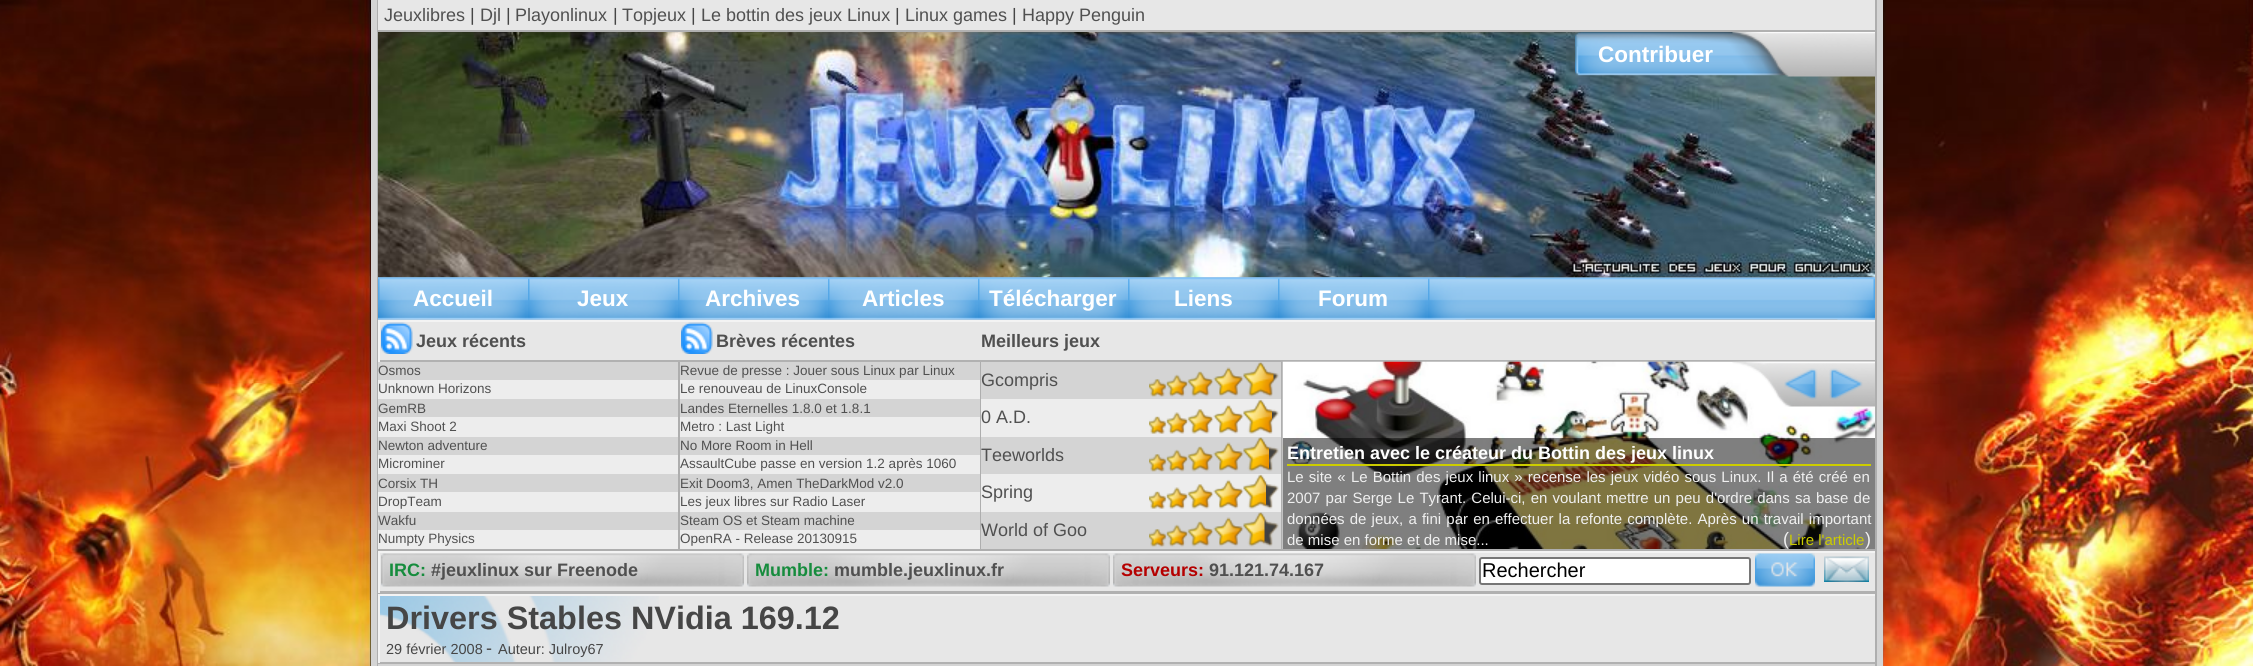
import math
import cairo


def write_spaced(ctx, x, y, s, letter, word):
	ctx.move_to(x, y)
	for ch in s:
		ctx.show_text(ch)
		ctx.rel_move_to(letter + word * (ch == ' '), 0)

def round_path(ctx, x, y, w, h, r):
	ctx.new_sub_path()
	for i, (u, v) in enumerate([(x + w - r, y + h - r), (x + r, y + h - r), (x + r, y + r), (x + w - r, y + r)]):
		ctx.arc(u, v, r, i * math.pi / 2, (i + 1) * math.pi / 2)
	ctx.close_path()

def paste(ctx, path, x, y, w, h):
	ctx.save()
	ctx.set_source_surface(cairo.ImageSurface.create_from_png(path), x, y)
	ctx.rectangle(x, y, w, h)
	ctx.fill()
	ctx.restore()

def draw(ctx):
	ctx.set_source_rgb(1, 1, 1)
	ctx.paint()
	paste(ctx, 'media/1.png', 0, 0, 2253, 666)
	ctx.set_source_rgb(0.694, 0.694, 0.694)
	ctx.rectangle(379, 277, 1496, 43)
	ctx.fill()
	ctx.set_source_rgb(0.831, 0.831, 0.831)
	ctx.rectangle(1877, 0, 6, 666)
	ctx.rectangle(371, 0, 6, 666)
	ctx.fill()
	ctx.set_source_rgb(0.682, 0.682, 0.682)
	ctx.rectangle(1875, 0, 2, 666)
	ctx.rectangle(377, 0, 2, 666)
	ctx.fill()
	ctx.set_source_rgb(0.906, 0.906, 0.906)
	ctx.rectangle(378, 0, 1497, 30)
	ctx.fill()
	ctx.set_source_rgb(0.694, 0.694, 0.694)
	ctx.rectangle(378, 30, 1497, 2)
	ctx.fill()
	ctx.select_font_face('Liberation Sans')
	ctx.set_font_size(18)
	ctx.set_source_rgb(0.314, 0.314, 0.314)
	ctx.move_to(384, 21)
	ctx.show_text('Jeuxlibres')
	ctx.set_source_rgb(0.275, 0.275, 0.275)
	ctx.move_to(470, 21)
	ctx.show_text('|')
	ctx.set_source_rgb(0.314, 0.314, 0.314)
	ctx.move_to(480, 21)
	ctx.show_text('Djl')
	ctx.set_source_rgb(0.275, 0.275, 0.275)
	ctx.move_to(506, 21)
	ctx.show_text('|')
	ctx.set_source_rgb(0.314, 0.314, 0.314)
	ctx.move_to(515, 21)
	ctx.show_text('Playonlinux')
	ctx.set_source_rgb(0.275, 0.275, 0.275)
	ctx.move_to(613, 21)
	ctx.show_text('|')
	ctx.set_source_rgb(0.314, 0.314, 0.314)
	ctx.move_to(622, 21)
	ctx.show_text('Topjeux')
	ctx.set_source_rgb(0.275, 0.275, 0.275)
	ctx.move_to(691, 21)
	ctx.show_text('|')
	ctx.set_source_rgb(0.314, 0.314, 0.314)
	ctx.move_to(701, 21)
	ctx.show_text('Le bottin des jeux Linux')
	ctx.set_source_rgb(0.275, 0.275, 0.275)
	ctx.move_to(895, 21)
	ctx.show_text('|')
	ctx.set_source_rgb(0.314, 0.314, 0.314)
	ctx.move_to(905, 21)
	ctx.show_text('Linux games')
	ctx.set_source_rgb(0.275, 0.275, 0.275)
	ctx.move_to(1012, 21)
	ctx.show_text('|')
	ctx.set_source_rgb(0.314, 0.314, 0.314)
	ctx.move_to(1022, 21)
	ctx.show_text('Happy Penguin')
	paste(ctx, 'media/2.png', 378, 32, 1497, 246)
	paste(ctx, 'media/3.png', 1575, 32, 300, 45)
	ctx.select_font_face('Liberation Sans', cairo.FONT_SLANT_NORMAL, cairo.FONT_WEIGHT_BOLD)
	ctx.set_font_size(22.5)
	ctx.set_source_rgb(1, 1, 1)
	ctx.move_to(1598, 62)
	ctx.show_text('Contribuer')
	paste(ctx, 'media/4.png', 378, 277, 1497, 43)
	paste(ctx, 'media/5.png', 378, 277, 150, 43)
	ctx.move_to(413, 306)
	ctx.show_text('Accueil')
	paste(ctx, 'media/6.png', 528, 277, 150, 43)
	ctx.move_to(577, 306)
	ctx.show_text('Jeux')
	paste(ctx, 'media/7.png', 678, 277, 150, 43)
	ctx.move_to(705, 306)
	ctx.show_text('Archives')
	paste(ctx, 'media/8.png', 828, 277, 150, 43)
	ctx.move_to(862, 306)
	ctx.show_text('Articles')
	paste(ctx, 'media/9.png', 978, 277, 150, 43)
	ctx.move_to(989, 306)
	ctx.show_text('Télécharger')
	paste(ctx, 'media/10.png', 1128, 277, 150, 43)
	ctx.move_to(1174, 306)
	ctx.show_text('Liens')
	paste(ctx, 'media/11.png', 1278, 277, 150, 43)
	ctx.move_to(1318, 306)
	ctx.show_text('Forum')
	paste(ctx, 'media/12.png', 1428, 277, 38, 43)
	paste(ctx, 'media/13.png', 1837, 277, 38, 43)
	ctx.set_source_rgb(0.906, 0.906, 0.906)
	ctx.rectangle(380, 322, 1495, 38)
	ctx.fill()
	ctx.set_source_rgb(0.953, 0.953, 0.953)
	ctx.rectangle(378, 320, 1497, 2)
	ctx.fill()
	ctx.set_source_rgb(0.694, 0.694, 0.694)
	ctx.rectangle(378, 360, 1497, 2)
	ctx.fill()
	ctx.set_source_rgb(0.953, 0.953, 0.953)
	ctx.rectangle(378, 320, 2, 42)
	ctx.fill()
	paste(ctx, 'media/14.png', 381, 322, 32, 32)
	ctx.set_font_size(18)
	ctx.set_source_rgb(0.314, 0.314, 0.314)
	ctx.move_to(416, 347)
	ctx.show_text('Jeux récents')
	paste(ctx, 'media/15.png', 681, 322, 32, 32)
	ctx.move_to(716, 347)
	ctx.show_text('Brèves récentes')
	ctx.move_to(981, 347)
	ctx.show_text('Meilleurs jeux')
	ctx.set_source_rgb(0.682, 0.682, 0.682)
	ctx.rectangle(378, 549, 1497, 2)
	ctx.rectangle(678, 362, 2, 189)
	ctx.fill()
	ctx.set_source_rgb(0.831, 0.831, 0.831)
	ctx.rectangle(378, 362, 300, 18)
	ctx.fill()
	ctx.select_font_face('Liberation Sans')
	ctx.set_font_size(13.5)
	ctx.set_source_rgb(0.314, 0.314, 0.314)
	ctx.move_to(378, 375)
	ctx.show_text('Osmos')
	ctx.set_source_rgb(0.929, 0.929, 0.929)
	ctx.rectangle(378, 380, 300, 19)
	ctx.fill()
	ctx.set_source_rgb(0.314, 0.314, 0.314)
	ctx.move_to(378, 393)
	ctx.show_text('Unknown Horizons')
	ctx.set_source_rgb(0.831, 0.831, 0.831)
	ctx.rectangle(378, 399, 300, 18)
	ctx.fill()
	ctx.set_source_rgb(0.314, 0.314, 0.314)
	ctx.move_to(378, 413)
	ctx.show_text('GemRB')
	ctx.set_source_rgb(0.929, 0.929, 0.929)
	ctx.rectangle(378, 417, 300, 20)
	ctx.fill()
	ctx.set_source_rgb(0.314, 0.314, 0.314)
	ctx.move_to(378, 431)
	ctx.show_text('Maxi Shoot 2')
	ctx.set_source_rgb(0.831, 0.831, 0.831)
	ctx.rectangle(378, 437, 300, 18)
	ctx.fill()
	ctx.set_source_rgb(0.314, 0.314, 0.314)
	ctx.move_to(378, 450)
	ctx.show_text('Newton adventure')
	ctx.set_source_rgb(0.929, 0.929, 0.929)
	ctx.rectangle(378, 455, 300, 19)
	ctx.fill()
	ctx.set_source_rgb(0.314, 0.314, 0.314)
	ctx.move_to(378, 468)
	ctx.show_text('Microminer')
	ctx.set_source_rgb(0.831, 0.831, 0.831)
	ctx.rectangle(378, 474, 300, 18)
	ctx.fill()
	ctx.set_source_rgb(0.314, 0.314, 0.314)
	ctx.move_to(378, 488)
	ctx.show_text('Corsix TH')
	ctx.set_source_rgb(0.929, 0.929, 0.929)
	ctx.rectangle(378, 492, 300, 20)
	ctx.fill()
	ctx.set_source_rgb(0.314, 0.314, 0.314)
	ctx.move_to(378, 506)
	ctx.show_text('DropTeam')
	ctx.set_source_rgb(0.831, 0.831, 0.831)
	ctx.rectangle(378, 512, 300, 18)
	ctx.fill()
	ctx.set_source_rgb(0.314, 0.314, 0.314)
	ctx.move_to(378, 525)
	ctx.show_text('Wakfu')
	ctx.set_source_rgb(0.929, 0.929, 0.929)
	ctx.rectangle(378, 530, 300, 19)
	ctx.fill()
	ctx.set_source_rgb(0.314, 0.314, 0.314)
	ctx.move_to(378, 543)
	ctx.show_text('Numpty Physics')
	ctx.set_source_rgb(0.682, 0.682, 0.682)
	ctx.rectangle(980, 362, 2, 189)
	ctx.fill()
	ctx.set_source_rgb(0.831, 0.831, 0.831)
	ctx.rectangle(680, 362, 300, 18)
	ctx.fill()
	ctx.set_source_rgb(0.314, 0.314, 0.314)
	ctx.move_to(680, 375)
	ctx.show_text('Revue de presse : Jouer sous Linux par Linux')
	ctx.set_source_rgb(0.929, 0.929, 0.929)
	ctx.rectangle(680, 380, 300, 19)
	ctx.fill()
	ctx.set_source_rgb(0.314, 0.314, 0.314)
	ctx.move_to(680, 393)
	ctx.show_text('Le renouveau de LinuxConsole')
	ctx.set_source_rgb(0.831, 0.831, 0.831)
	ctx.rectangle(680, 399, 300, 18)
	ctx.fill()
	ctx.set_source_rgb(0.314, 0.314, 0.314)
	ctx.move_to(680, 413)
	ctx.show_text('Landes Eternelles 1.8.0 et 1.8.1')
	ctx.set_source_rgb(0.929, 0.929, 0.929)
	ctx.rectangle(680, 417, 300, 20)
	ctx.fill()
	ctx.set_source_rgb(0.314, 0.314, 0.314)
	ctx.move_to(680, 431)
	ctx.show_text('Metro : Last Light')
	ctx.set_source_rgb(0.831, 0.831, 0.831)
	ctx.rectangle(680, 437, 300, 18)
	ctx.fill()
	ctx.set_source_rgb(0.314, 0.314, 0.314)
	ctx.move_to(680, 450)
	ctx.show_text('No More Room in Hell')
	ctx.set_source_rgb(0.929, 0.929, 0.929)
	ctx.rectangle(680, 455, 300, 19)
	ctx.fill()
	ctx.set_source_rgb(0.314, 0.314, 0.314)
	ctx.move_to(680, 468)
	ctx.show_text('AssaultCube passe en version 1.2 après 1060')
	ctx.set_source_rgb(0.831, 0.831, 0.831)
	ctx.rectangle(680, 474, 300, 18)
	ctx.fill()
	ctx.set_source_rgb(0.314, 0.314, 0.314)
	ctx.move_to(680, 488)
	ctx.show_text('Exit Doom3, Amen TheDarkMod v2.0')
	ctx.set_source_rgb(0.929, 0.929, 0.929)
	ctx.rectangle(680, 492, 300, 20)
	ctx.fill()
	ctx.set_source_rgb(0.314, 0.314, 0.314)
	ctx.move_to(680, 506)
	ctx.show_text('Les jeux libres sur Radio Laser')
	ctx.set_source_rgb(0.831, 0.831, 0.831)
	ctx.rectangle(680, 512, 300, 18)
	ctx.fill()
	ctx.set_source_rgb(0.314, 0.314, 0.314)
	ctx.move_to(680, 525)
	ctx.show_text('Steam OS et Steam machine')
	ctx.set_source_rgb(0.929, 0.929, 0.929)
	ctx.rectangle(680, 530, 300, 19)
	ctx.fill()
	ctx.set_source_rgb(0.314, 0.314, 0.314)
	ctx.move_to(680, 543)
	ctx.show_text('OpenRA - Release 20130915')
	ctx.set_source_rgb(0.682, 0.682, 0.682)
	ctx.rectangle(1281, 362, 2, 189)
	ctx.fill()
	ctx.set_source_rgb(0.831, 0.831, 0.831)
	ctx.rectangle(981, 362, 300, 37)
	ctx.fill()
	ctx.set_font_size(18)
	ctx.set_source_rgb(0.314, 0.314, 0.314)
	ctx.move_to(981, 386)
	ctx.show_text('Gcompris')
	paste(ctx, 'media/16.png', 1149, 362, 130, 35)
	paste(ctx, 'media/17.png', 1149, 362, 125, 35)
	ctx.set_source_rgb(0.929, 0.929, 0.929)
	ctx.rectangle(981, 399, 300, 38)
	ctx.fill()
	ctx.set_source_rgb(0.314, 0.314, 0.314)
	ctx.move_to(981, 423)
	ctx.show_text('0 A.D.')
	paste(ctx, 'media/18.png', 1149, 399, 130, 35)
	paste(ctx, 'media/19.png', 1149, 400, 123, 34)
	ctx.set_source_rgb(0.831, 0.831, 0.831)
	ctx.rectangle(981, 437, 300, 37)
	ctx.fill()
	ctx.set_source_rgb(0.314, 0.314, 0.314)
	ctx.move_to(981, 461)
	ctx.show_text('Teeworlds')
	paste(ctx, 'media/16.png', 1149, 437, 130, 35)
	paste(ctx, 'media/20.png', 1149, 437, 120, 35)
	ctx.set_source_rgb(0.929, 0.929, 0.929)
	ctx.rectangle(981, 474, 300, 38)
	ctx.fill()
	ctx.set_source_rgb(0.314, 0.314, 0.314)
	ctx.move_to(981, 498)
	ctx.show_text('Spring')
	paste(ctx, 'media/18.png', 1149, 474, 130, 35)
	paste(ctx, 'media/21.png', 1149, 475, 117, 34)
	ctx.set_source_rgb(0.831, 0.831, 0.831)
	ctx.rectangle(981, 512, 300, 37)
	ctx.fill()
	ctx.set_source_rgb(0.314, 0.314, 0.314)
	ctx.move_to(981, 536)
	ctx.show_text('World of Goo')
	paste(ctx, 'media/16.png', 1149, 512, 130, 35)
	paste(ctx, 'media/22.png', 1149, 512, 116, 35)
	paste(ctx, 'media/26.png', 1282, 361, 593, 188)
	paste(ctx, 'media/23.png', 1732, 361, 143, 46)
	paste(ctx, 'media/24.png', 1784, 368, 34, 32)
	paste(ctx, 'media/25.png', 1829, 368, 34, 32)
	ctx.set_source_rgba(0, 0, 0, 0.5)
	ctx.rectangle(1283, 438, 592, 111)
	ctx.fill()
	ctx.set_source_rgb(0.8, 0.8, 0)
	ctx.rectangle(1287, 464, 584, 2)
	ctx.fill()
	ctx.select_font_face('Liberation Sans', cairo.FONT_SLANT_NORMAL, cairo.FONT_WEIGHT_BOLD)
	ctx.set_source_rgb(1, 1, 1)
	ctx.move_to(1287, 459)
	ctx.show_text('Entretien avec le créateur du Bottin des jeux linux')
	ctx.select_font_face('Liberation Sans')
	ctx.set_font_size(15)
	ctx.set_source_rgb(0.941, 0.941, 0.941)
	for x, y, s in [
		(1287, 482, 'Le site « Le Bottin des jeux linux » recense les jeux vidéo sous Linux. Il a été créé en'),
		(1287, 503, '2007 par Serge Le Tyrant. Celui-ci, en voulant mettre un peu d\'ordre dans sa base de'),
		(1287, 524, 'données de jeux, a fini par en effectuer la refonte complète. Après un travail important'),
	]:
		write_spaced(ctx, x, y, s, 0, 1)
	ctx.move_to(1287, 545)
	ctx.show_text('de mise en forme et de mise...')
	ctx.set_font_size(18)
	ctx.move_to(1783, 545)
	ctx.show_text('(')
	ctx.set_font_size(15)
	ctx.set_source_rgb(0.8, 0.8, 0)
	ctx.move_to(1789, 545)
	ctx.show_text('Lire l\'article')
	ctx.set_font_size(18)
	ctx.set_source_rgb(0.941, 0.941, 0.941)
	ctx.move_to(1865, 545)
	ctx.show_text(')')
	ctx.set_source_rgb(0.906, 0.906, 0.906)
	ctx.rectangle(380, 553, 1495, 38)
	ctx.fill()
	ctx.set_source_rgb(0.953, 0.953, 0.953)
	ctx.rectangle(378, 551, 1497, 2)
	ctx.fill()
	ctx.set_source_rgb(0.694, 0.694, 0.694)
	ctx.rectangle(378, 591, 1497, 3)
	ctx.fill()
	ctx.set_source_rgb(0.953, 0.953, 0.953)
	ctx.rectangle(378, 551, 2, 42)
	ctx.fill()
	paste(ctx, 'media/27.png', 381, 553, 363, 34)
	ctx.select_font_face('Liberation Sans', cairo.FONT_SLANT_NORMAL, cairo.FONT_WEIGHT_BOLD)
	ctx.set_source_rgb(0.086, 0.549, 0.239)
	ctx.move_to(389, 576)
	ctx.show_text('IRC:')
	ctx.set_source_rgb(0.314, 0.314, 0.314)
	ctx.move_to(431, 576)
	ctx.show_text('#jeuxlinux sur Freenode')
	paste(ctx, 'media/28.png', 747, 553, 363, 34)
	ctx.set_source_rgb(0.086, 0.549, 0.239)
	ctx.move_to(755, 576)
	ctx.show_text('Mumble:')
	ctx.set_source_rgb(0.314, 0.314, 0.314)
	ctx.move_to(834, 576)
	ctx.show_text('mumble.jeuxlinux.fr')
	paste(ctx, 'media/27.png', 1113, 553, 363, 34)
	ctx.set_source_rgb(0.71, 0, 0)
	ctx.move_to(1121, 576)
	ctx.show_text('Serveurs:')
	ctx.set_source_rgb(0.314, 0.314, 0.314)
	ctx.move_to(1209, 576)
	ctx.show_text('91.121.74.167')
	ctx.set_source_rgb(1, 1, 1)
	round_path(ctx, 1480, 558, 270, 26, 2)
	ctx.fill_preserve()
	ctx.set_source_rgb(0.463, 0.463, 0.463)
	ctx.stroke()
	ctx.select_font_face('Liberation Sans')
	ctx.set_font_size(20)
	ctx.set_source_rgb(0, 0, 0)
	ctx.move_to(1482, 577)
	ctx.show_text('Rechercher')
	paste(ctx, 'media/29.png', 1755, 553, 60, 34)
	paste(ctx, 'media/30.png', 1824, 556, 45, 26)
	paste(ctx, 'media/31.png', 378, 664, 1497, 2)
	ctx.set_source_rgb(0.906, 0.906, 0.906)
	ctx.rectangle(659, 596, 1216, 66)
	ctx.fill()
	paste(ctx, 'media/32.png', 380, 596, 279, 66)
	ctx.set_source_rgb(0.953, 0.953, 0.953)
	ctx.rectangle(378, 594, 1497, 2)
	ctx.fill()
	ctx.set_source_rgb(0.694, 0.694, 0.694)
	ctx.rectangle(378, 662, 1497, 2)
	ctx.fill()
	ctx.set_source_rgb(0.953, 0.953, 0.953)
	ctx.rectangle(378, 594, 2, 69)
	ctx.fill()
	ctx.select_font_face('Liberation Sans', cairo.FONT_SLANT_NORMAL, cairo.FONT_WEIGHT_BOLD)
	ctx.set_font_size(32.4)
	ctx.set_source_rgb(0.275, 0.275, 0.275)
	ctx.move_to(386, 629)
	ctx.show_text('Drivers Stables NVidia 169.12')
	ctx.select_font_face('Liberation Sans')
	ctx.set_font_size(14.5)
	ctx.move_to(386, 654)
	ctx.show_text('29 février 2008')
	ctx.set_font_size(18)
	ctx.move_to(486, 654)
	ctx.show_text('-')
	ctx.set_font_size(14.5)
	ctx.move_to(498, 654)
	ctx.show_text('Auteur: Julroy67')


surface = cairo.ImageSurface(cairo.FORMAT_RGB24, 2253, 666)
ctx = cairo.Context(surface)
options = cairo.FontOptions()
options.set_hint_metrics(cairo.HINT_METRICS_OFF)
options.set_hint_style(cairo.HINT_STYLE_NONE)
ctx.set_font_options(options)
ctx.set_miter_limit(4)
draw(ctx)
surface.write_to_png('image.png')
